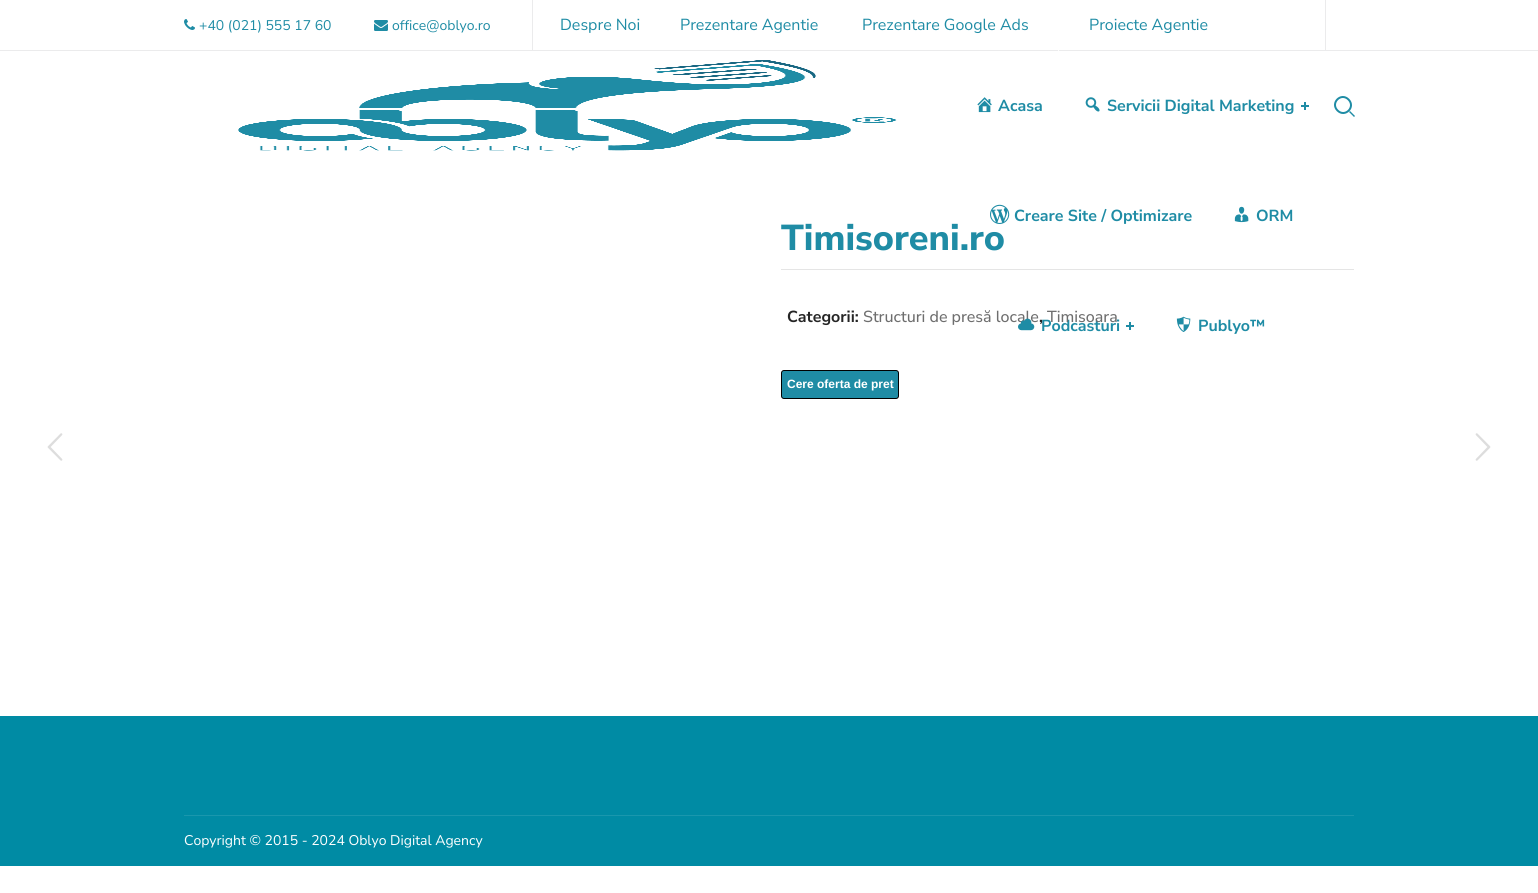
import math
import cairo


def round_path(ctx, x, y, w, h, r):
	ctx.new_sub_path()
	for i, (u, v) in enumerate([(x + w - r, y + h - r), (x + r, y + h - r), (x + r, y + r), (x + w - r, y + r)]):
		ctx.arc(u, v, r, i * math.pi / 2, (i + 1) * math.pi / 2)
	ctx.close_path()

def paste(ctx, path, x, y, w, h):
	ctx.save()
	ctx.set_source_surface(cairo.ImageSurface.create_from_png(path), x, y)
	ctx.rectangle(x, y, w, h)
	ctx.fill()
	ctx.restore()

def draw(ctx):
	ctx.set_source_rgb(1, 1, 1)
	ctx.paint()
	ctx.set_source_rgb(0.918, 0.918, 0.925)
	ctx.rectangle(0, 50, 1538, 1)
	ctx.fill()
	ctx.set_source_rgb(0.992, 0.992, 0.992)
	ctx.rectangle(1058, 50, 1, 1)
	ctx.fill()
	paste(ctx, 'media/1.png', 184, 19, 11, 11)
	ctx.select_font_face('Nunito Sans')
	ctx.set_font_size(14)
	ctx.set_source_rgb(0.122, 0.549, 0.647)
	ctx.move_to(199, 30)
	ctx.show_text('+40 (021) 555 17 60')
	paste(ctx, 'media/2.png', 374, 20, 14, 11)
	ctx.move_to(392, 30)
	ctx.show_text('office@oblyo.ro')
	ctx.set_source_rgb(0.918, 0.918, 0.925)
	ctx.rectangle(532, 0, 1, 50)
	ctx.fill()
	ctx.set_font_size(16)
	ctx.set_source_rgb(0.122, 0.549, 0.647)
	for x, y, s in [
		(560, 30, 'Despre Noi'),
		(680, 30, 'Prezentare Agentie'),
		(862, 30, 'Prezentare Google Ads'),
		(1089, 30, 'Proiecte Agentie'),
	]:
		ctx.move_to(x, y)
		ctx.show_text(s)
	ctx.set_source_rgb(0.918, 0.918, 0.925)
	ctx.rectangle(1325, 0, 1, 50)
	ctx.fill()
	paste(ctx, 'media/3.png', 238, 60, 659, 91)
	paste(ctx, 'media/4.png', 977, 97, 15, 16)
	ctx.select_font_face('Nunito Sans', cairo.FONT_SLANT_NORMAL, cairo.FONT_WEIGHT_BOLD)
	ctx.set_source_rgb(0.122, 0.549, 0.647)
	ctx.move_to(998, 111)
	ctx.show_text('Acasa')
	paste(ctx, 'media/5.png', 1085, 97, 15, 15)
	ctx.move_to(1107, 111)
	ctx.show_text('Servicii Digital Marketing')
	ctx.rectangle(1301, 105, 8, 2)
	ctx.fill()
	ctx.rectangle(1304, 102, 2, 8)
	ctx.fill()
	ctx.select_font_face('Nunito Sans ExtraBold')
	ctx.set_font_size(36)
	ctx.move_to(781, 250)
	ctx.show_text('Timisoreni.ro')
	paste(ctx, 'media/6.png', 990, 204, 20, 20)
	ctx.select_font_face('Nunito Sans', cairo.FONT_SLANT_NORMAL, cairo.FONT_WEIGHT_BOLD)
	ctx.set_font_size(16)
	ctx.move_to(1014, 221)
	ctx.show_text('Creare Site / Optimizare')
	paste(ctx, 'media/7.png', 1234, 206, 15, 17)
	ctx.move_to(1256, 221)
	ctx.show_text('ORM')
	ctx.select_font_face('Nunito Sans Medium')
	ctx.set_source_rgb(0.431, 0.431, 0.431)
	ctx.move_to(863, 322)
	ctx.show_text('Structuri de presă locale')
	paste(ctx, 'media/8.png', 1018, 318, 17, 13)
	ctx.select_font_face('Nunito Sans', cairo.FONT_SLANT_NORMAL, cairo.FONT_WEIGHT_BOLD)
	ctx.set_source_rgb(0.122, 0.549, 0.647)
	ctx.move_to(1041, 331)
	ctx.show_text('Podcasturi')
	ctx.rectangle(1126, 325, 8, 2)
	ctx.fill()
	ctx.rectangle(1129, 322, 2, 8)
	ctx.fill()
	paste(ctx, 'media/9.png', 1176, 316, 15, 16)
	ctx.move_to(1198, 331)
	ctx.show_text('Publyo™')
	ctx.new_path()
	ctx.move_to(1348.5, 99.5)
	ctx.curve_to(1356, 107, 1345, 118, 1337.5, 110.5)
	ctx.curve_to(1330, 103, 1341, 92, 1348.5, 99.5)
	ctx.close_path()
	ctx.stroke()
	ctx.new_path()
	ctx.move_to(1349, 112)
	ctx.line_to(1350, 111)
	ctx.line_to(1355, 116)
	ctx.line_to(1354, 117)
	ctx.close_path()
	ctx.fill()
	ctx.set_source_rgb(0.898, 0.898, 0.898)
	ctx.rectangle(781, 269, 573, 1)
	ctx.fill()
	ctx.set_source_rgb(0.145, 0.145, 0.145)
	ctx.move_to(787, 322)
	ctx.show_text('Categorii:')
	ctx.move_to(1039, 322)
	ctx.show_text(',')
	ctx.select_font_face('Nunito Sans Medium')
	ctx.set_source_rgb(0.431, 0.431, 0.431)
	ctx.move_to(1047, 322)
	ctx.show_text('Timisoara')
	ctx.set_source_rgb(0.122, 0.549, 0.647)
	round_path(ctx, 781.5, 370.5, 117, 28, 2.5)
	ctx.fill_preserve()
	ctx.set_source_rgb(0, 0, 0)
	ctx.set_line_width(1)
	ctx.stroke()
	ctx.select_font_face('Liberation Sans', cairo.FONT_SLANT_NORMAL, cairo.FONT_WEIGHT_BOLD)
	ctx.set_font_size(12)
	ctx.set_source_rgb(1, 1, 1)
	ctx.move_to(787, 388)
	ctx.show_text('Cere oferta de pret')
	paste(ctx, 'media/10.png', 47, 433, 16, 28)
	paste(ctx, 'media/11.png', 1475, 433, 16, 28)
	ctx.set_source_rgb(0, 0.545, 0.643)
	ctx.rectangle(0, 716, 1538, 150)
	ctx.fill()
	ctx.set_source_rgb(0.102, 0.592, 0.678)
	ctx.rectangle(184, 815, 1170, 1)
	ctx.fill()
	ctx.select_font_face('Nunito Sans')
	ctx.set_font_size(14)
	ctx.set_source_rgb(1, 1, 1)
	ctx.move_to(184, 845)
	ctx.show_text('Copyright © 2015 - 2024 Oblyo Digital Agency')


surface = cairo.ImageSurface(cairo.FORMAT_RGB24, 1538, 893)
ctx = cairo.Context(surface)
options = cairo.FontOptions()
options.set_hint_metrics(cairo.HINT_METRICS_OFF)
options.set_hint_style(cairo.HINT_STYLE_NONE)
ctx.set_font_options(options)
ctx.set_miter_limit(4)
draw(ctx)
surface.write_to_png('image.png')
